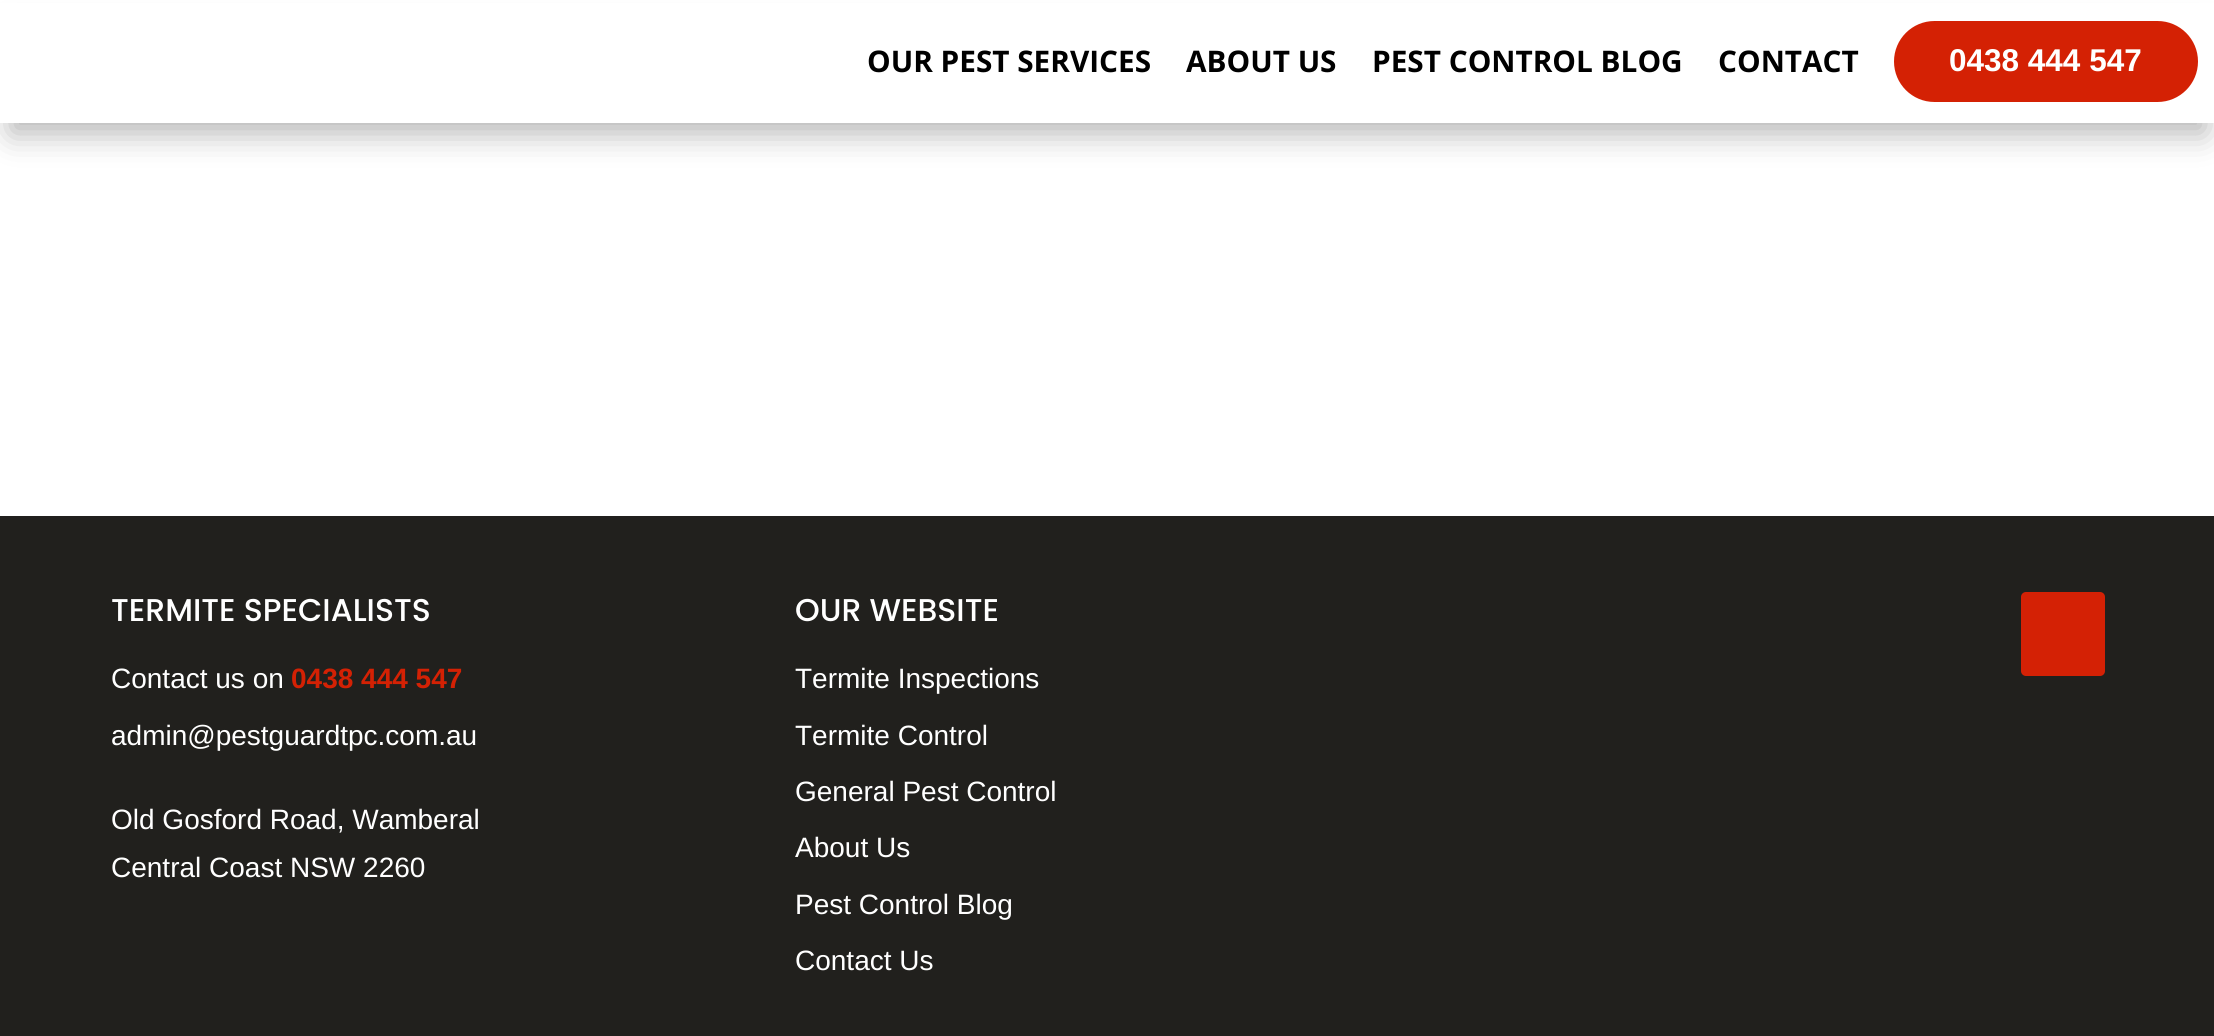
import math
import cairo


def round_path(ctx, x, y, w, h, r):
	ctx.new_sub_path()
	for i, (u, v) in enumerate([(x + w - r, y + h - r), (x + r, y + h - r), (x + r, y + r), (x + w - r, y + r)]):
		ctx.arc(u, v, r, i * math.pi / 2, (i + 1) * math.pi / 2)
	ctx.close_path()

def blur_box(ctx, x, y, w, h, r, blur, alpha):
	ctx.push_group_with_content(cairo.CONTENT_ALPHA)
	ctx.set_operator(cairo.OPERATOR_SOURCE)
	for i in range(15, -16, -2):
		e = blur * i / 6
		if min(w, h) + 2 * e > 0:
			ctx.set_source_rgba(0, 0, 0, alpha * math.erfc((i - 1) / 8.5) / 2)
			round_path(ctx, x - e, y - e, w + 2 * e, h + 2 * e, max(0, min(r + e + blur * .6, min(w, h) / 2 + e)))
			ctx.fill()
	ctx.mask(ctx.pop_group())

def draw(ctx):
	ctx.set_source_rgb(1, 1, 1)
	ctx.paint()
	ctx.set_source_rgb(0, 0, 0)
	blur_box(ctx, 11, 32, 2194, 101, 0, 16, 0.3)
	ctx.set_source_rgb(1, 1, 1)
	ctx.rectangle(0, 3, 2214, 120)
	ctx.fill()
	ctx.select_font_face('Open Sans', cairo.FONT_SLANT_NORMAL, cairo.FONT_WEIGHT_BOLD)
	ctx.set_font_size(29.75)
	ctx.set_source_rgb(0, 0, 0)
	for x, y, s in [
		(867, 72, 'OUR PEST SERVICES'),
		(1186, 72, 'ABOUT US'),
		(1372, 72, 'PEST CONTROL BLOG'),
		(1718, 72, 'CONTACT'),
	]:
		ctx.move_to(x, y)
		ctx.show_text(s)
	ctx.set_source_rgb(0.831, 0.129, 0.016)
	round_path(ctx, 1896, 23, 300, 77, 38.5)
	ctx.fill_preserve()
	ctx.set_line_width(4)
	ctx.stroke()
	ctx.select_font_face('Liberation Sans', cairo.FONT_SLANT_NORMAL, cairo.FONT_WEIGHT_BOLD)
	ctx.set_font_size(31.5)
	ctx.set_source_rgb(1, 1, 1)
	ctx.move_to(1949, 71)
	ctx.show_text('0438 444 547')
	ctx.set_source_rgb(0.129, 0.125, 0.114)
	ctx.rectangle(0, 516, 2214, 520)
	ctx.fill()
	ctx.select_font_face('Poppins Medium')
	ctx.set_source_rgb(1, 1, 1)
	ctx.move_to(111, 621)
	ctx.show_text('TERMITE SPECIALISTS')
	ctx.select_font_face('Liberation Sans')
	ctx.set_font_size(28)
	ctx.move_to(111, 688)
	ctx.show_text('Contact us on')
	ctx.select_font_face('Liberation Sans', cairo.FONT_SLANT_NORMAL, cairo.FONT_WEIGHT_BOLD)
	ctx.set_source_rgb(0.831, 0.129, 0.016)
	ctx.move_to(291, 688)
	ctx.show_text('0438 444 547')
	ctx.select_font_face('Liberation Sans')
	ctx.set_source_rgb(1, 1, 1)
	for x, y, s in [
		(111, 745, 'admin@pestguardtpc.com.au'),
		(111, 829, 'Old Gosford Road, Wamberal'),
		(111, 877, 'Central Coast NSW 2260'),
	]:
		ctx.move_to(x, y)
		ctx.show_text(s)
	ctx.select_font_face('Poppins Medium')
	ctx.set_font_size(31.5)
	ctx.move_to(795, 621)
	ctx.show_text('OUR WEBSITE')
	ctx.select_font_face('Liberation Sans')
	ctx.set_font_size(28)
	for x, y, s in [
		(795, 688, 'Termite Inspections'),
		(795, 745, 'Termite Control'),
		(795, 801, 'General Pest Control'),
		(795, 857, 'About Us'),
		(795, 914, 'Pest Control Blog'),
		(795, 970, 'Contact Us'),
	]:
		ctx.move_to(x, y)
		ctx.show_text(s)
	ctx.set_source_rgb(0.831, 0.129, 0.02)
	round_path(ctx, 2021, 592, 84, 84, 5)
	ctx.fill()


surface = cairo.ImageSurface(cairo.FORMAT_RGB24, 2214, 1036)
ctx = cairo.Context(surface)
options = cairo.FontOptions()
options.set_hint_metrics(cairo.HINT_METRICS_OFF)
options.set_hint_style(cairo.HINT_STYLE_NONE)
ctx.set_font_options(options)
ctx.set_miter_limit(4)
draw(ctx)
surface.write_to_png('image.png')
